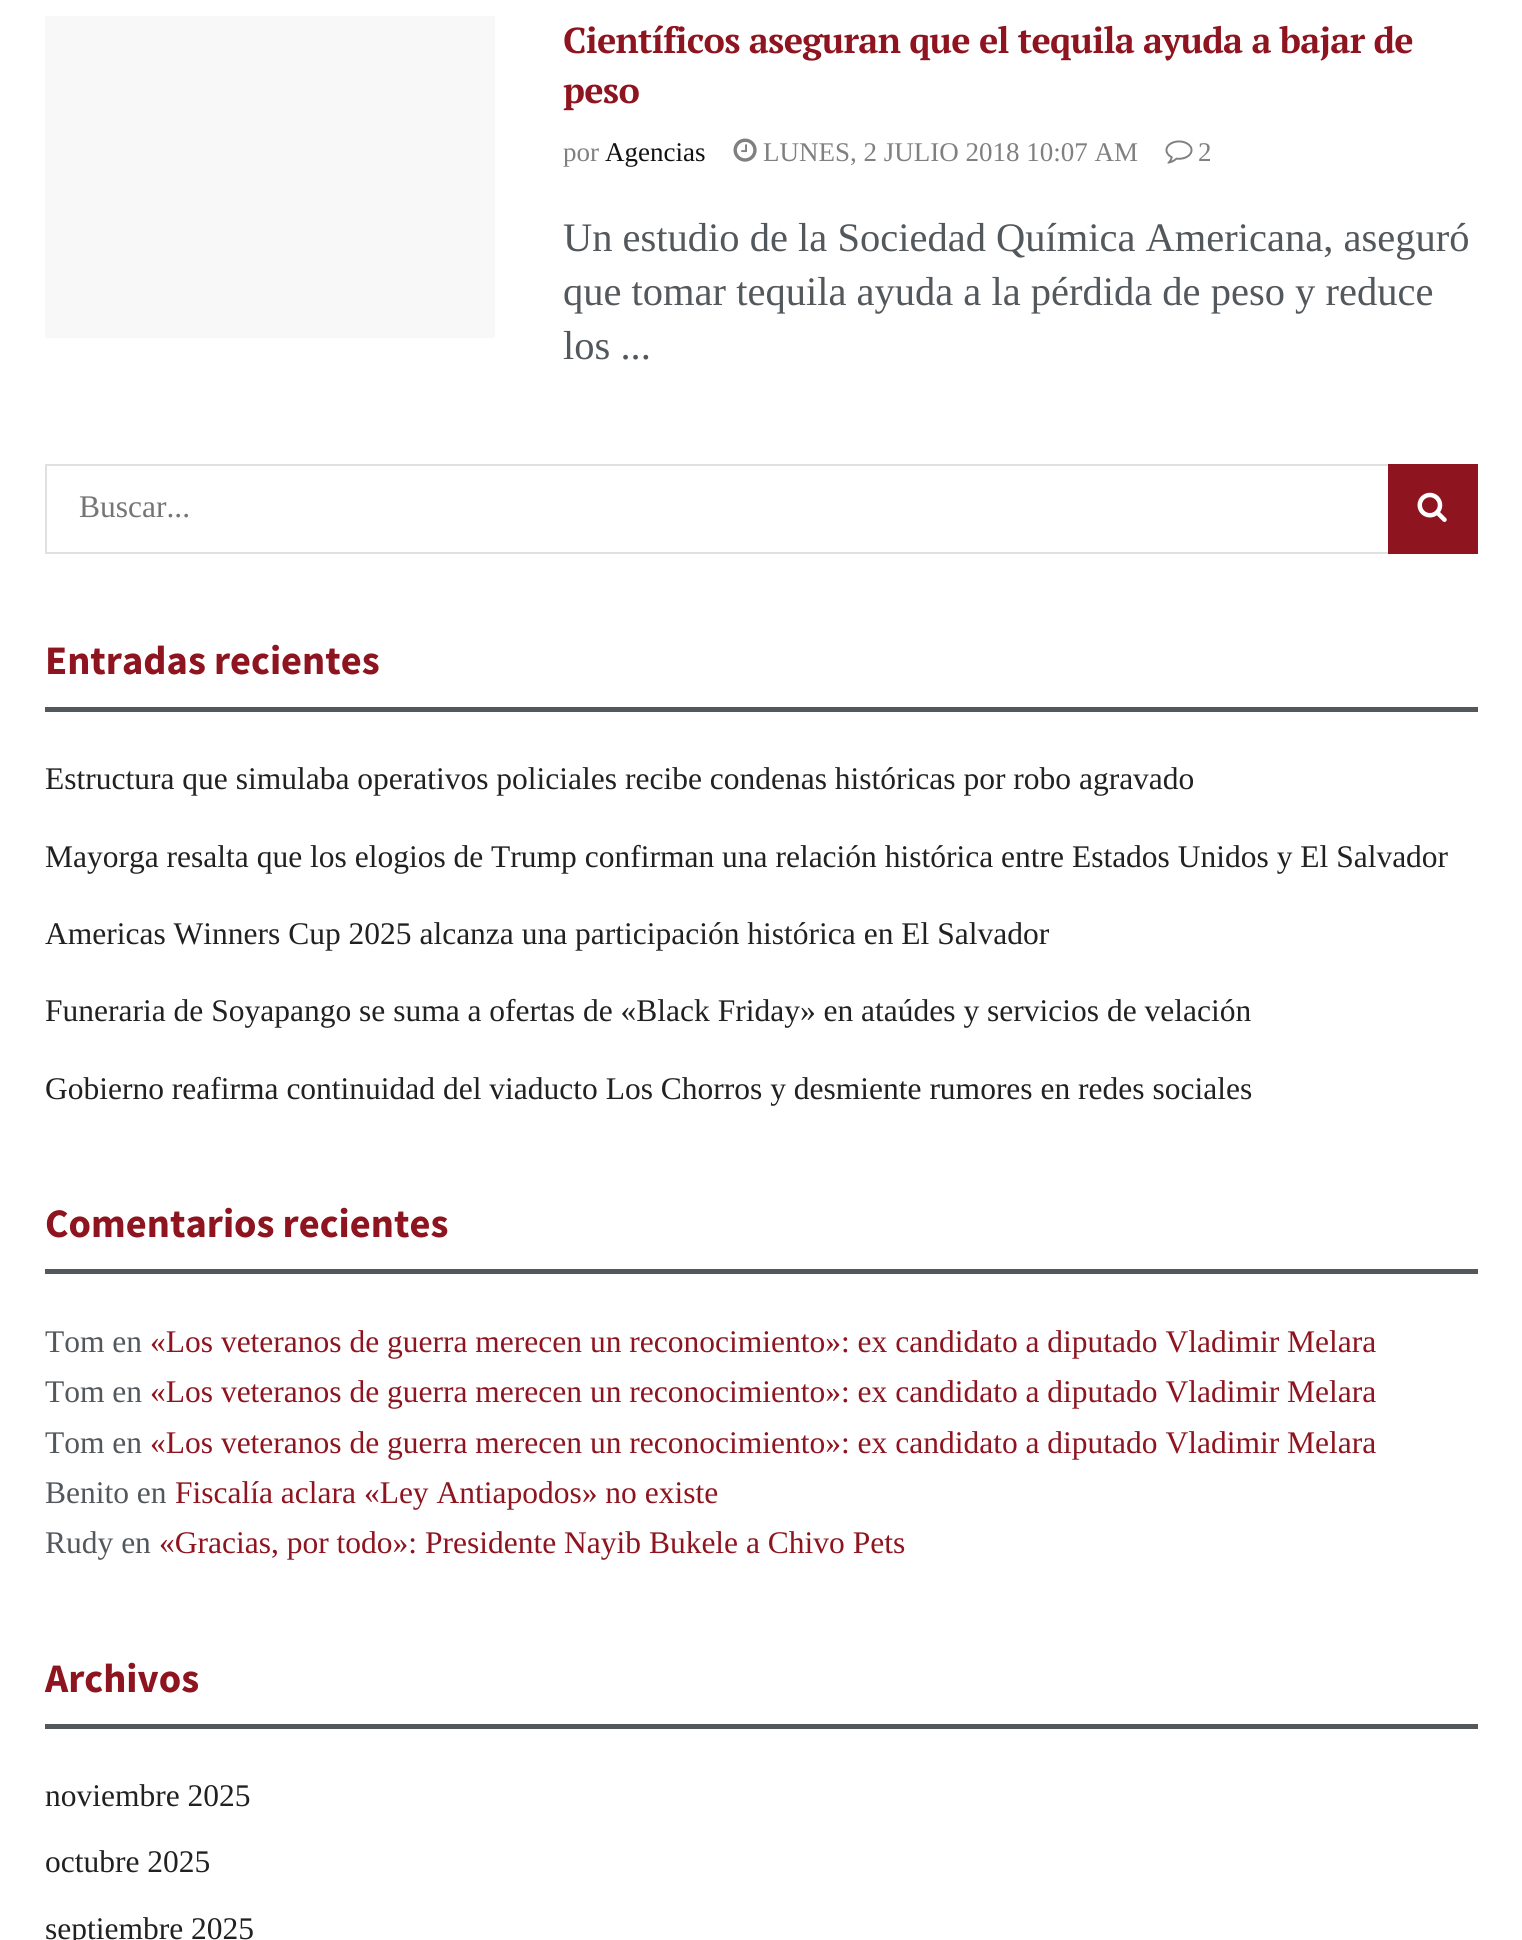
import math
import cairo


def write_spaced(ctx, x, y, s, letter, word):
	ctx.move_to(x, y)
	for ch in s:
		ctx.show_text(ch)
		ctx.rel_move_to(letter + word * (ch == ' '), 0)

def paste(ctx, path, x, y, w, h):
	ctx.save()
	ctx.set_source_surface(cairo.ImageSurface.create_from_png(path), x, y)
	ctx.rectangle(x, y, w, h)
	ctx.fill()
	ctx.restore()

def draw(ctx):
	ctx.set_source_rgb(1, 1, 1)
	ctx.paint()
	ctx.set_source_rgb(0.969, 0.969, 0.969)
	ctx.rectangle(45, 16, 450, 322)
	ctx.fill()
	ctx.select_font_face('PT Serif', cairo.FONT_SLANT_NORMAL, cairo.FONT_WEIGHT_BOLD)
	ctx.set_font_size(36)
	ctx.set_source_rgb(0.557, 0.082, 0.122)
	write_spaced(ctx, 563, 53, 'Científicos aseguran que el tequila ayuda a bajar de', -0.72, 0)
	write_spaced(ctx, 563, 103, 'peso', -0.72, 0)
	ctx.select_font_face('Tinos')
	ctx.set_font_size(27)
	ctx.set_source_rgb(0.502, 0.502, 0.502)
	ctx.move_to(563, 161)
	ctx.show_text('por')
	ctx.set_source_rgb(0.067, 0.067, 0.067)
	ctx.move_to(605, 161)
	ctx.show_text('Agencias')
	paste(ctx, 'media/1.png', 733, 138, 24, 24)
	ctx.set_source_rgb(0.502, 0.502, 0.502)
	ctx.move_to(763, 161)
	ctx.show_text('LUNES, 2 JULIO 2018 10:07 AM')
	paste(ctx, 'media/2.png', 1165, 140, 28, 24)
	ctx.move_to(1198, 161)
	ctx.show_text('2')
	ctx.set_font_size(40.5)
	ctx.set_source_rgb(0.325, 0.345, 0.361)
	for x, y, s in [
		(563, 251, 'Un estudio de la Sociedad Química Americana, aseguró'),
		(563, 305, 'que tomar tequila ayuda a la pérdida de peso y reduce'),
		(563, 359, 'los ...'),
	]:
		ctx.move_to(x, y)
		ctx.show_text(s)
	ctx.rectangle(46, 465, 1431, 88)
	ctx.set_source_rgb(0.878, 0.878, 0.878)
	ctx.stroke()
	ctx.set_font_size(31.5)
	ctx.set_source_rgb(0.459, 0.459, 0.459)
	ctx.move_to(79, 517)
	ctx.show_text('Buscar...')
	ctx.set_source_rgb(0.557, 0.082, 0.122)
	ctx.rectangle(1388, 464, 90, 90)
	ctx.fill()
	paste(ctx, 'media/3.png', 1417, 492, 30, 30)
	ctx.set_source_rgb(0.325, 0.345, 0.361)
	ctx.rectangle(45, 707, 1433, 5)
	ctx.fill()
	ctx.select_font_face('Source Sans Pro', cairo.FONT_SLANT_NORMAL, cairo.FONT_WEIGHT_BOLD)
	ctx.set_font_size(40.5)
	ctx.set_source_rgb(0.557, 0.082, 0.122)
	ctx.move_to(45, 674)
	ctx.show_text('Entradas recientes')
	ctx.select_font_face('Tinos')
	ctx.set_font_size(31.5)
	ctx.set_source_rgb(0.129, 0.129, 0.129)
	for x, y, s in [
		(45, 789, 'Estructura que simulaba operativos policiales recibe condenas históricas por robo agravado'),
		(45, 867, 'Mayorga resalta que los elogios de Trump confirman una relación histórica entre Estados Unidos y El Salvador'),
		(45, 944, 'Americas Winners Cup 2025 alcanza una participación histórica en El Salvador'),
		(45, 1021, 'Funeraria de Soyapango se suma a ofertas de «Black Friday» en ataúdes y servicios de velación'),
		(45, 1099, 'Gobierno reafirma continuidad del viaducto Los Chorros y desmiente rumores en redes sociales'),
	]:
		ctx.move_to(x, y)
		ctx.show_text(s)
	ctx.set_source_rgb(0.325, 0.345, 0.361)
	ctx.rectangle(45, 1269, 1433, 5)
	ctx.fill()
	ctx.select_font_face('Source Sans Pro', cairo.FONT_SLANT_NORMAL, cairo.FONT_WEIGHT_BOLD)
	ctx.set_font_size(40.5)
	ctx.set_source_rgb(0.557, 0.082, 0.122)
	ctx.move_to(45, 1237)
	ctx.show_text('Comentarios recientes')
	ctx.select_font_face('Tinos')
	ctx.set_font_size(31.5)
	ctx.set_source_rgb(0.325, 0.345, 0.361)
	ctx.move_to(45, 1352)
	ctx.show_text('Tom en')
	ctx.set_source_rgb(0.557, 0.082, 0.122)
	ctx.move_to(150, 1352)
	ctx.show_text('«Los veteranos de guerra merecen un reconocimiento»: ex candidato a diputado Vladimir Melara')
	ctx.set_source_rgb(0.325, 0.345, 0.361)
	ctx.move_to(45, 1402)
	ctx.show_text('Tom en')
	ctx.set_source_rgb(0.557, 0.082, 0.122)
	ctx.move_to(150, 1402)
	ctx.show_text('«Los veteranos de guerra merecen un reconocimiento»: ex candidato a diputado Vladimir Melara')
	ctx.set_source_rgb(0.325, 0.345, 0.361)
	ctx.move_to(45, 1453)
	ctx.show_text('Tom en')
	ctx.set_source_rgb(0.557, 0.082, 0.122)
	ctx.move_to(150, 1453)
	ctx.show_text('«Los veteranos de guerra merecen un reconocimiento»: ex candidato a diputado Vladimir Melara')
	ctx.set_source_rgb(0.325, 0.345, 0.361)
	ctx.move_to(45, 1503)
	ctx.show_text('Benito en')
	ctx.set_source_rgb(0.557, 0.082, 0.122)
	ctx.move_to(175, 1503)
	ctx.show_text('Fiscalía aclara «Ley Antiapodos» no existe')
	ctx.set_source_rgb(0.325, 0.345, 0.361)
	ctx.move_to(45, 1553)
	ctx.show_text('Rudy en')
	ctx.set_source_rgb(0.557, 0.082, 0.122)
	ctx.move_to(159, 1553)
	ctx.show_text('«Gracias, por todo»: Presidente Nayib Bukele a Chivo Pets')
	ctx.set_source_rgb(0.325, 0.345, 0.361)
	ctx.rectangle(45, 1724, 1433, 5)
	ctx.fill()
	ctx.select_font_face('Source Sans Pro', cairo.FONT_SLANT_NORMAL, cairo.FONT_WEIGHT_BOLD)
	ctx.set_font_size(40.5)
	ctx.set_source_rgb(0.557, 0.082, 0.122)
	ctx.move_to(45, 1692)
	ctx.show_text('Archivos')
	ctx.select_font_face('Tinos')
	ctx.set_font_size(31.5)
	ctx.set_source_rgb(0.129, 0.129, 0.129)
	for x, y, s in [
		(45, 1806, 'noviembre 2025'),
		(45, 1872, 'octubre 2025'),
		(45, 1939, 'septiembre 2025'),
	]:
		ctx.move_to(x, y)
		ctx.show_text(s)


surface = cairo.ImageSurface(cairo.FORMAT_RGB24, 1522, 1940)
ctx = cairo.Context(surface)
options = cairo.FontOptions()
options.set_hint_metrics(cairo.HINT_METRICS_OFF)
options.set_hint_style(cairo.HINT_STYLE_NONE)
ctx.set_font_options(options)
ctx.set_miter_limit(4)
draw(ctx)
surface.write_to_png('image.png')
